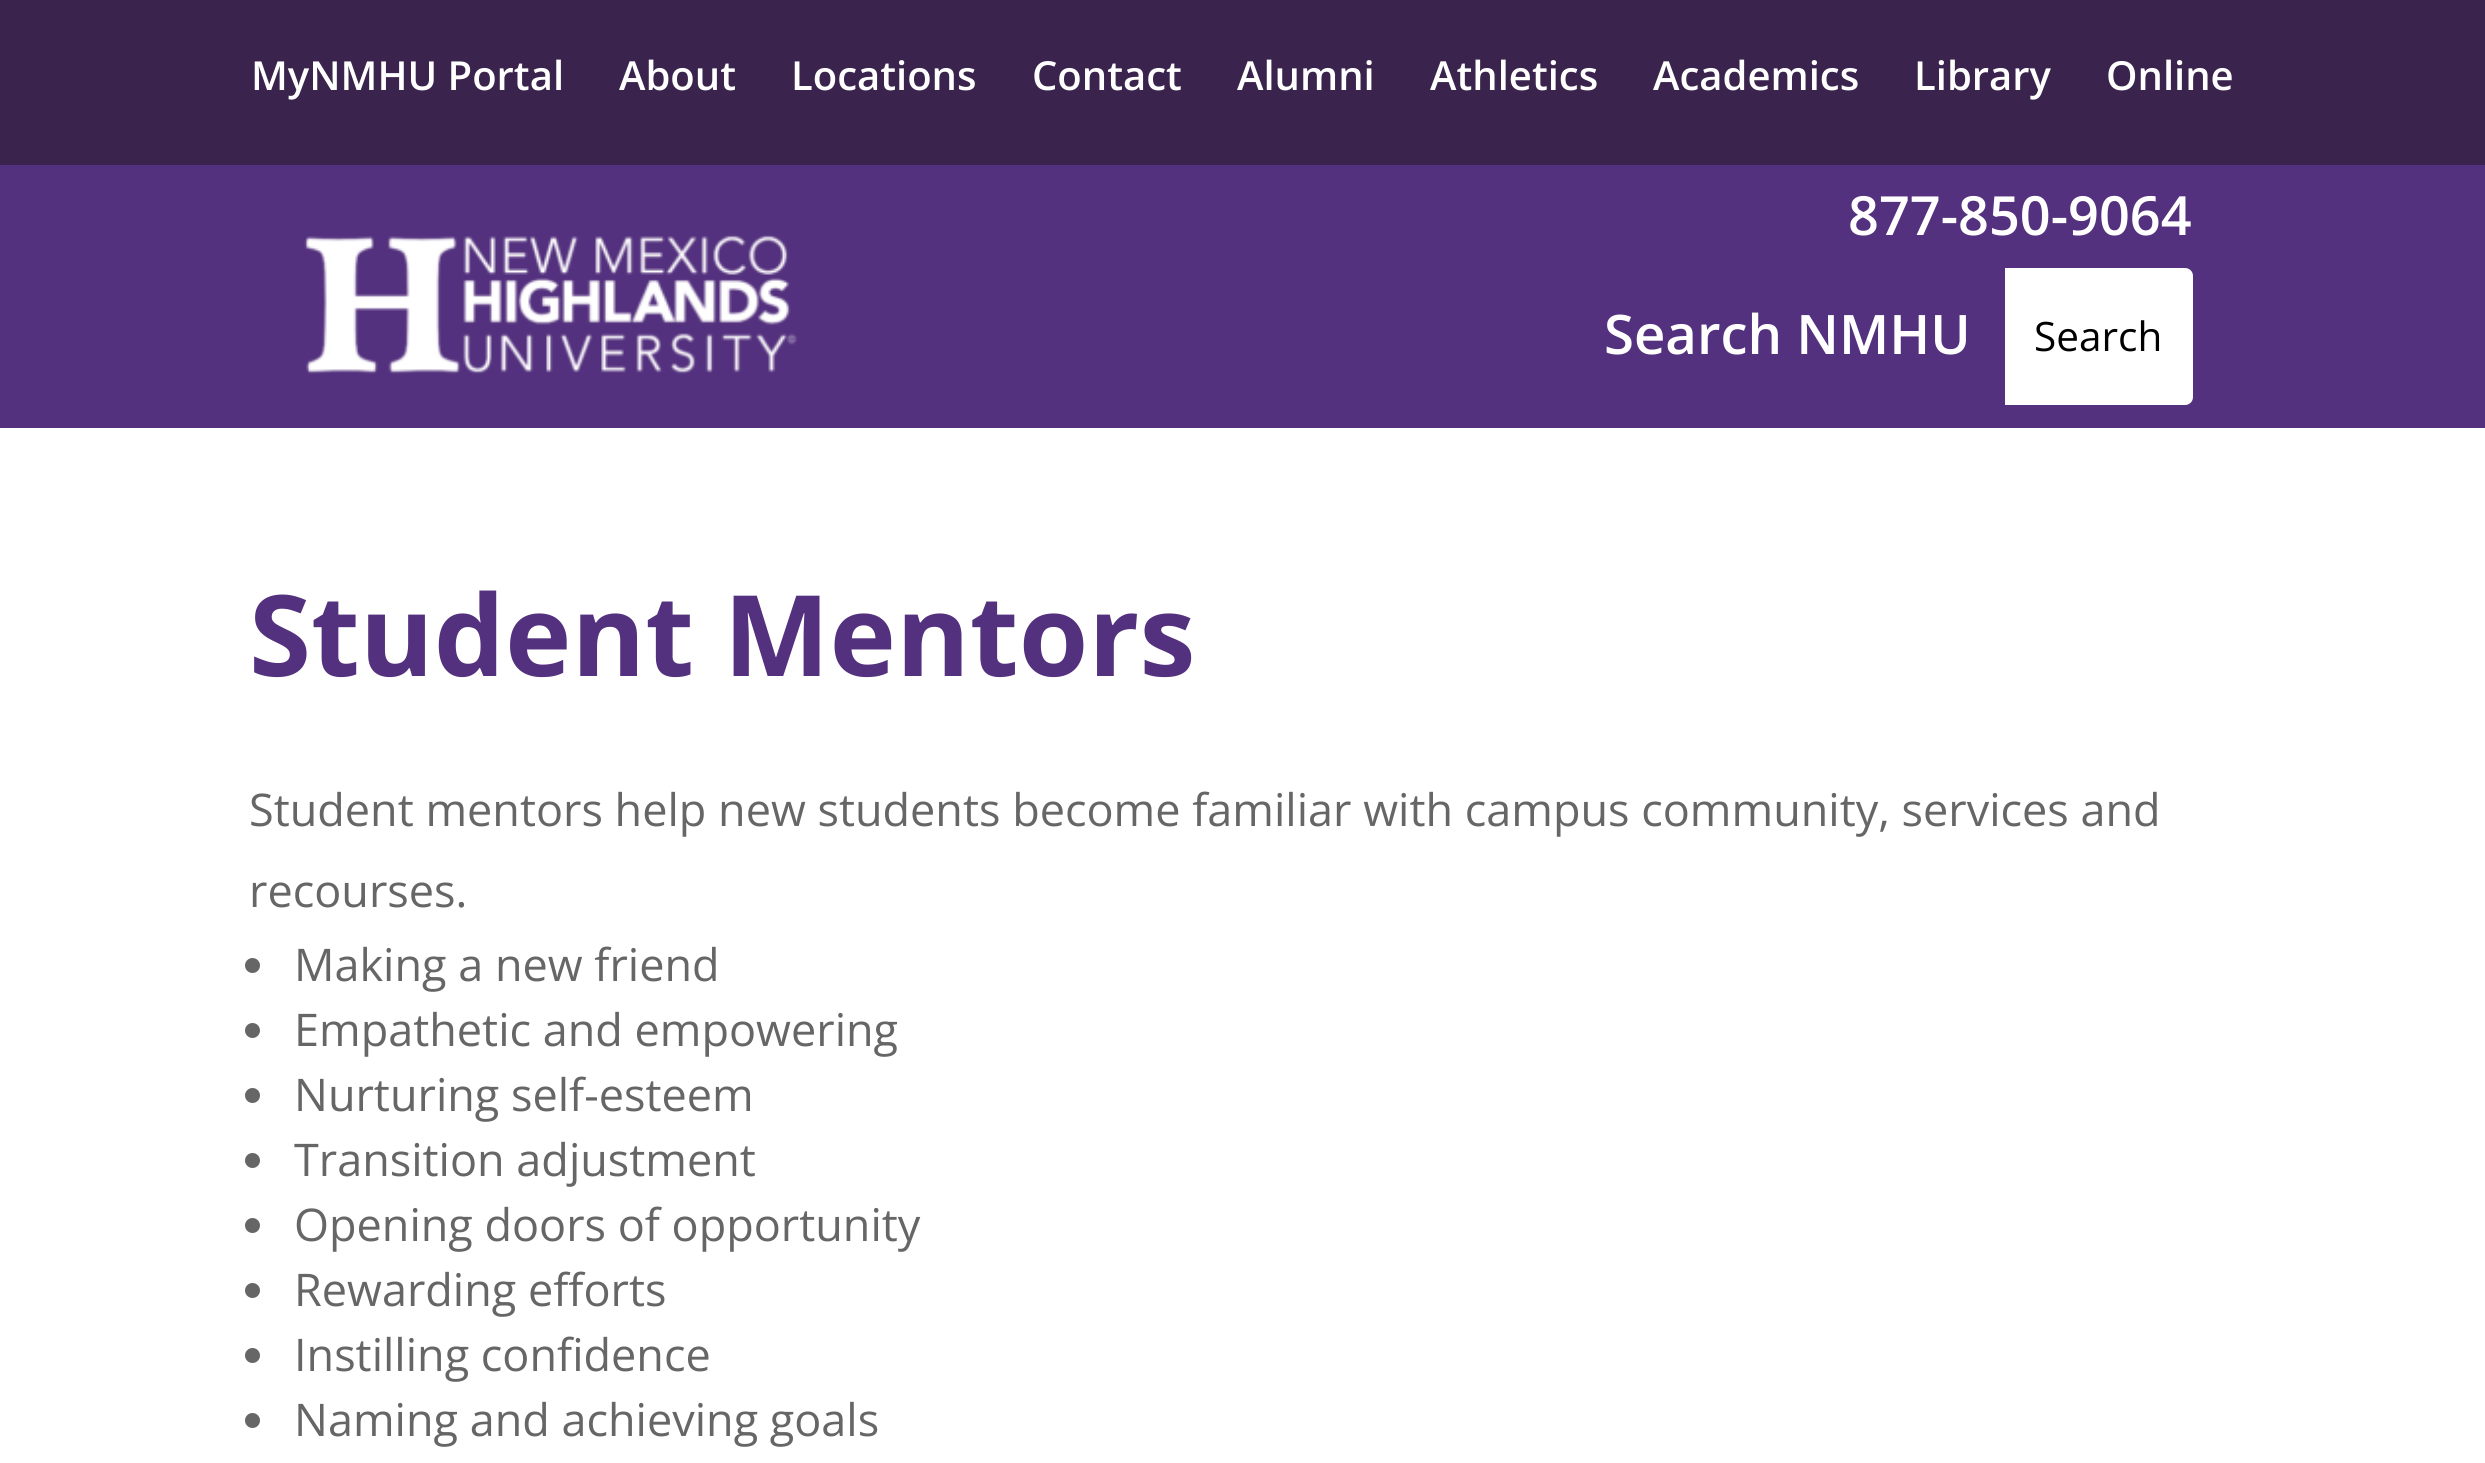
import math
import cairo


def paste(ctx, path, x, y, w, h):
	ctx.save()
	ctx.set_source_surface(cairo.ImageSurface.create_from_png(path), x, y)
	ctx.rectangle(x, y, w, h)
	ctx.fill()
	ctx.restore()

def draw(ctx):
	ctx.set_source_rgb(1, 1, 1)
	ctx.paint()
	ctx.set_source_rgb(0.227, 0.137, 0.298)
	ctx.rectangle(0, 0, 2485, 165)
	ctx.fill()
	ctx.select_font_face('Open Sans SemiBold')
	ctx.set_font_size(40)
	ctx.set_source_rgb(1, 1, 1)
	for x, y, s in [
		(251, 90, 'MyNMHU Portal'),
		(619, 90, 'About'),
		(791, 90, 'Locations'),
		(1032, 90, 'Contact'),
		(1237, 90, 'Alumni'),
		(1430, 90, 'Athletics'),
		(1653, 90, 'Academics'),
		(1914, 90, 'Library'),
		(2106, 90, 'Online'),
	]:
		ctx.move_to(x, y)
		ctx.show_text(s)
	ctx.set_source_rgb(0.329, 0.192, 0.494)
	ctx.rectangle(0, 165, 2485, 263)
	ctx.fill()
	paste(ctx, 'media/1.png', 304, 234, 493, 140)
	ctx.set_font_size(54)
	ctx.set_source_rgb(1, 1, 1)
	ctx.move_to(1848, 235)
	ctx.show_text('877-850-9064')
	ctx.set_font_size(54.5)
	ctx.move_to(1604, 354)
	ctx.show_text('Search NMHU')
	ctx.new_path()
	ctx.move_to(2005, 268)
	ctx.line_to(2185, 268)
	ctx.curve_to(2189.5, 268, 2193, 271.5, 2193, 276)
	ctx.line_to(2193, 397)
	ctx.curve_to(2193, 401.5, 2189.5, 405, 2185, 405)
	ctx.line_to(2005, 405)
	ctx.close_path()
	ctx.fill()
	ctx.select_font_face('Open Sans')
	ctx.set_font_size(40.5)
	ctx.set_source_rgb(0, 0, 0)
	ctx.move_to(2034, 351)
	ctx.show_text('Search')
	ctx.select_font_face('Open Sans', cairo.FONT_SLANT_NORMAL, cairo.FONT_WEIGHT_BOLD)
	ctx.set_font_size(112.5)
	ctx.set_source_rgb(0.329, 0.192, 0.494)
	ctx.move_to(249, 676)
	ctx.show_text('Student Mentors')
	ctx.select_font_face('Open Sans')
	ctx.set_font_size(45)
	ctx.set_source_rgb(0.4, 0.4, 0.4)
	ctx.move_to(249, 826)
	ctx.show_text('Student mentors help new students become familiar with campus community, services and')
	ctx.move_to(249, 907)
	ctx.show_text('recourses.')
	ctx.new_path()
	ctx.arc(252.5, 965.5, 7.5, 0, 2 * math.pi)
	ctx.fill()
	ctx.move_to(294, 981)
	ctx.show_text('Making a new friend')
	ctx.new_path()
	ctx.arc(252.5, 1030.5, 7.5, 0, 2 * math.pi)
	ctx.fill()
	ctx.move_to(294, 1046)
	ctx.show_text('Empathetic and empowering')
	ctx.new_path()
	ctx.arc(252.5, 1095.5, 7.5, 0, 2 * math.pi)
	ctx.fill()
	ctx.move_to(294, 1111)
	ctx.show_text('Nurturing self-esteem')
	ctx.new_path()
	ctx.arc(252.5, 1160.5, 7.5, 0, 2 * math.pi)
	ctx.fill()
	ctx.move_to(294, 1176)
	ctx.show_text('Transition adjustment')
	ctx.new_path()
	ctx.arc(252.5, 1225.5, 7.5, 0, 2 * math.pi)
	ctx.fill()
	ctx.move_to(294, 1241)
	ctx.show_text('Opening doors of opportunity')
	ctx.new_path()
	ctx.arc(252.5, 1290.5, 7.5, 0, 2 * math.pi)
	ctx.fill()
	ctx.move_to(294, 1306)
	ctx.show_text('Rewarding efforts')
	ctx.new_path()
	ctx.arc(252.5, 1355.5, 7.5, 0, 2 * math.pi)
	ctx.fill()
	ctx.move_to(294, 1371)
	ctx.show_text('Instilling confidence')
	ctx.new_path()
	ctx.arc(252.5, 1420.5, 7.5, 0, 2 * math.pi)
	ctx.fill()
	ctx.move_to(294, 1436)
	ctx.show_text('Naming and achieving goals')


surface = cairo.ImageSurface(cairo.FORMAT_RGB24, 2485, 1463)
ctx = cairo.Context(surface)
options = cairo.FontOptions()
options.set_hint_metrics(cairo.HINT_METRICS_OFF)
options.set_hint_style(cairo.HINT_STYLE_NONE)
ctx.set_font_options(options)
ctx.set_miter_limit(4)
draw(ctx)
surface.write_to_png('image.png')
